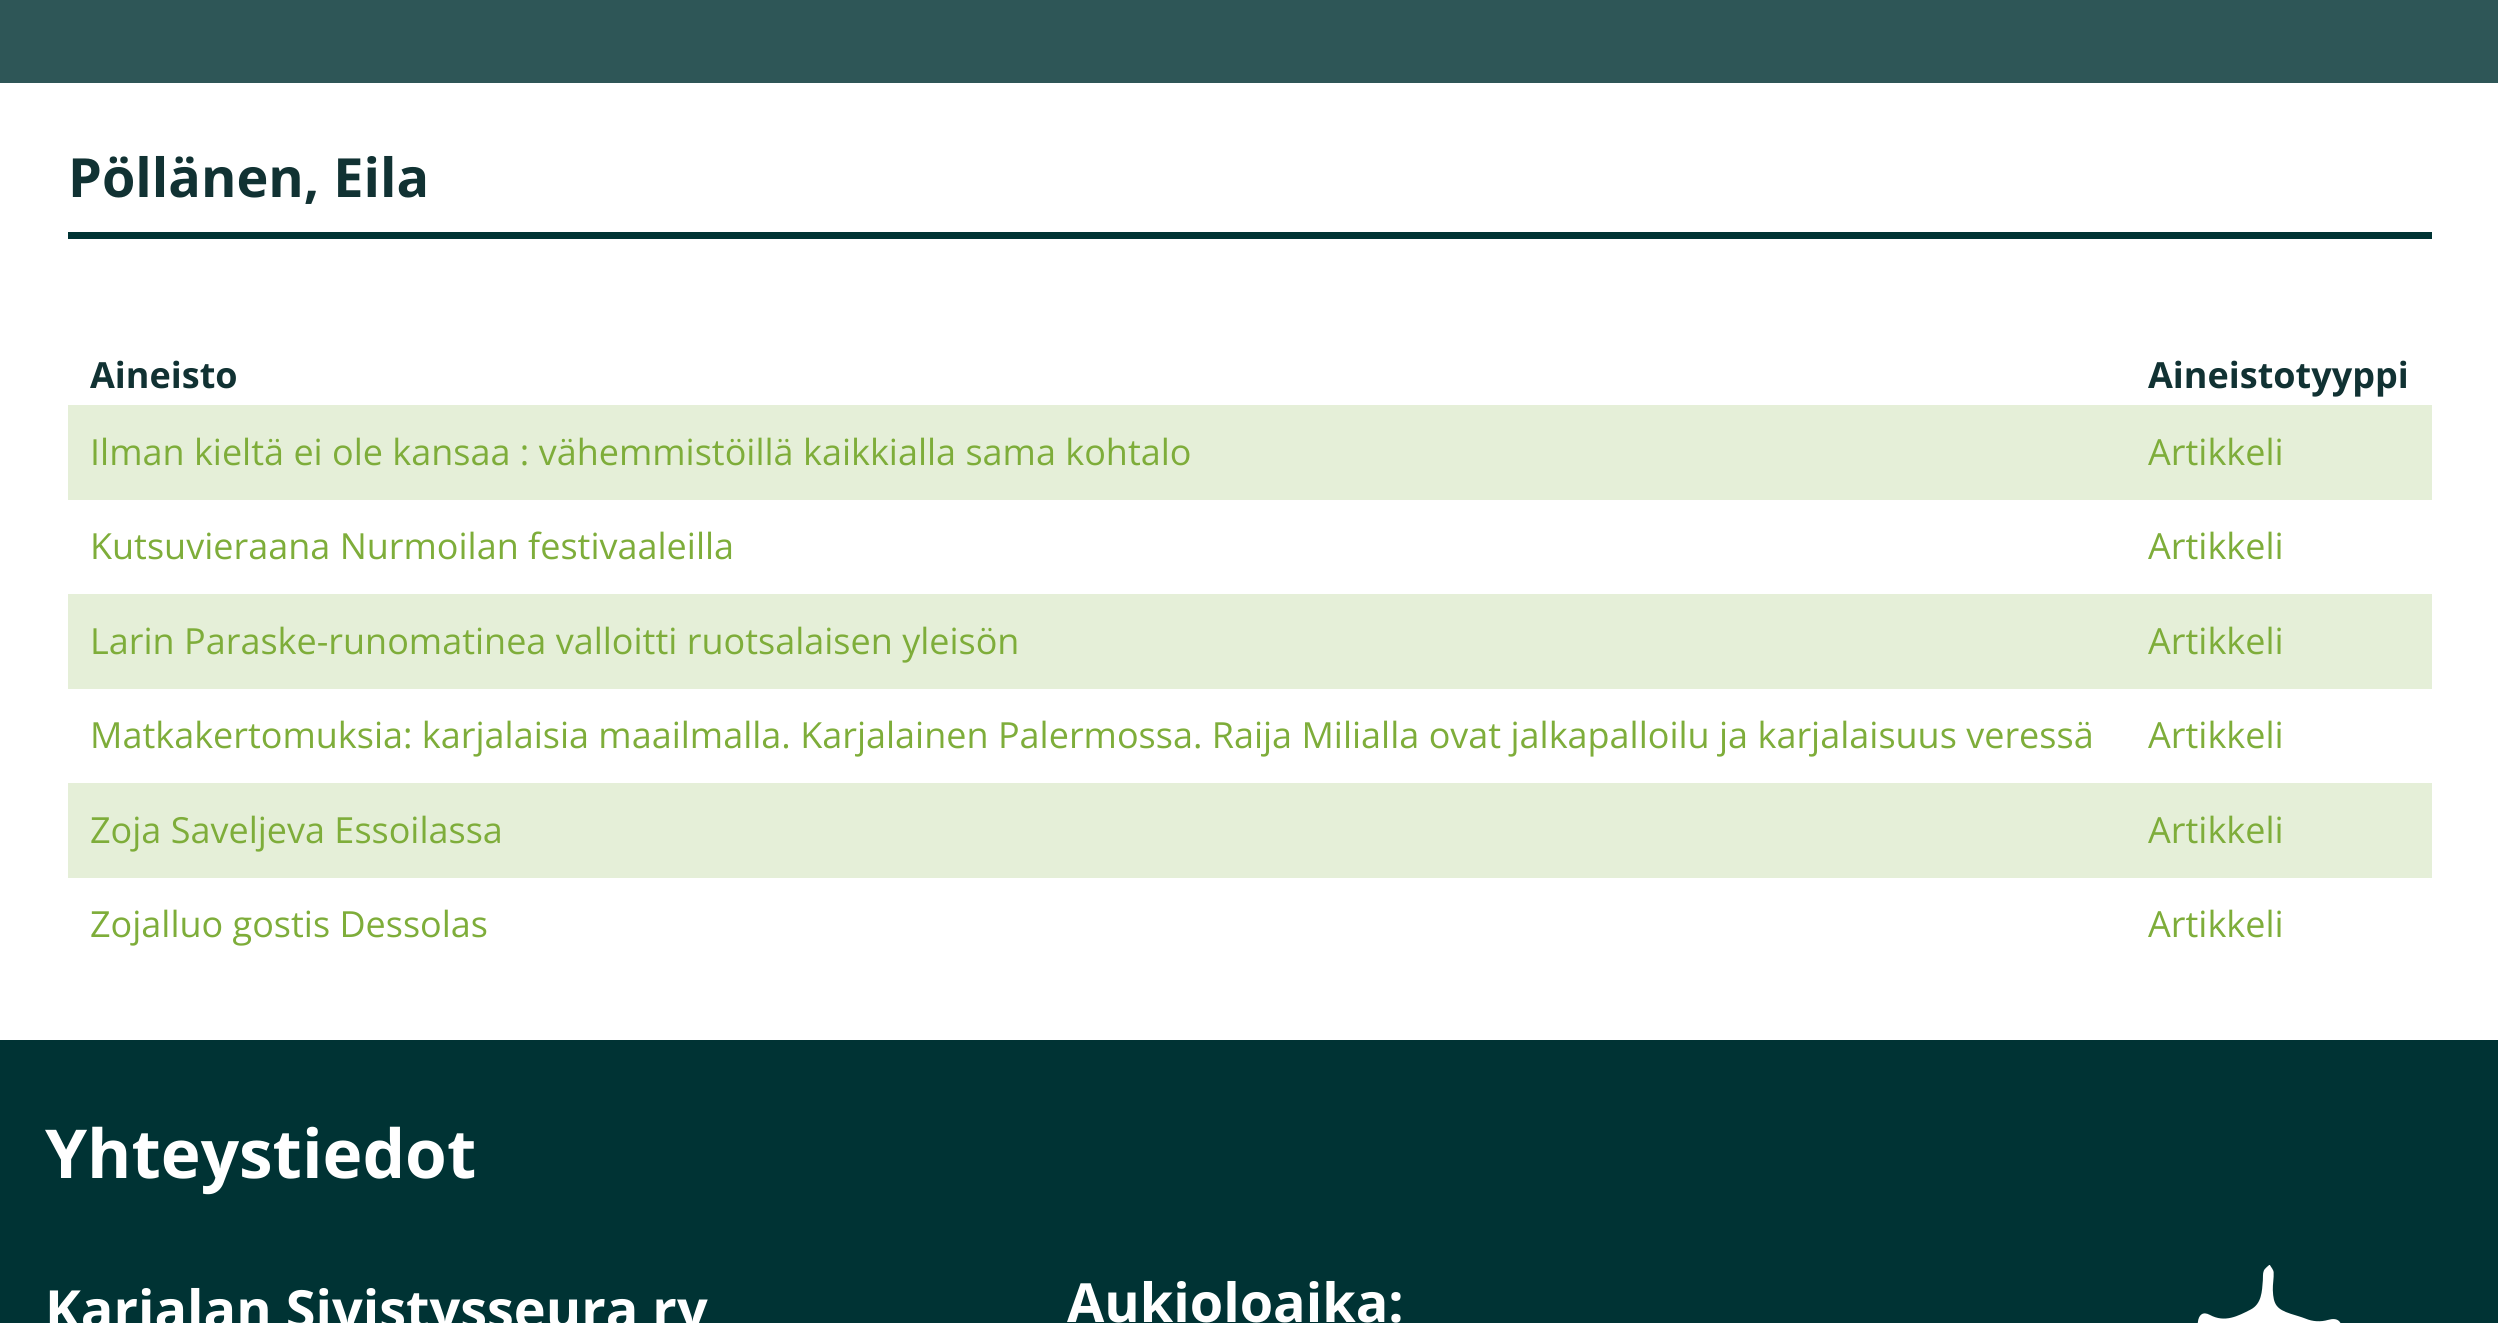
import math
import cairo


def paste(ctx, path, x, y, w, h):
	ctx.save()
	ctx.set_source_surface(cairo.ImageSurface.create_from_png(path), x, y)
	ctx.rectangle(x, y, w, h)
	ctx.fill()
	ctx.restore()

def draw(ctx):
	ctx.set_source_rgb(0.18, 0.337, 0.341)
	ctx.paint()
	ctx.set_source_rgb(1, 1, 1)
	ctx.rectangle(0, 83, 2498, 957)
	ctx.fill()
	ctx.set_source_rgb(0, 0.2, 0.204)
	ctx.rectangle(68, 232, 2364, 7)
	ctx.fill()
	ctx.select_font_face('Open Sans', cairo.FONT_SLANT_NORMAL, cairo.FONT_WEIGHT_BOLD)
	ctx.set_font_size(54)
	ctx.set_source_rgb(0.067, 0.196, 0.2)
	ctx.move_to(68, 197)
	ctx.show_text('Pöllänen, Eila')
	ctx.set_font_size(36)
	ctx.move_to(90, 388)
	ctx.show_text('Aineisto')
	ctx.move_to(2148, 388)
	ctx.show_text('Aineistotyyppi')
	ctx.set_source_rgb(0.898, 0.937, 0.847)
	ctx.rectangle(68, 405, 2364, 95)
	ctx.fill()
	ctx.select_font_face('Open Sans')
	ctx.set_source_rgb(0.494, 0.678, 0.227)
	for x, y, s in [
		(90, 465, 'Ilman kieltä ei ole kansaa : vähemmistöillä kaikkialla sama kohtalo'),
		(2148, 465, 'Artikkeli'),
		(90, 559, 'Kutsuvieraana Nurmoilan festivaaleilla'),
		(2148, 559, 'Artikkeli'),
	]:
		ctx.move_to(x, y)
		ctx.show_text(s)
	ctx.set_source_rgb(0.898, 0.937, 0.847)
	ctx.rectangle(68, 594, 2364, 95)
	ctx.fill()
	ctx.set_source_rgb(0.494, 0.678, 0.227)
	for x, y, s in [
		(90, 654, 'Larin Paraske-runomatinea valloitti ruotsalaisen yleisön'),
		(2148, 654, 'Artikkeli'),
		(90, 748, 'Matkakertomuksia: karjalaisia maailmalla. Karjalainen Palermossa. Raija Milialla ovat jalkapalloilu ja karjalaisuus veressä'),
		(2148, 748, 'Artikkeli'),
	]:
		ctx.move_to(x, y)
		ctx.show_text(s)
	ctx.set_source_rgb(0.898, 0.937, 0.847)
	ctx.rectangle(68, 783, 2364, 95)
	ctx.fill()
	ctx.set_source_rgb(0.494, 0.678, 0.227)
	for x, y, s in [
		(90, 843, 'Zoja Saveljeva Essoilassa'),
		(2148, 843, 'Artikkeli'),
		(90, 937, 'Zojalluo gostis Dessolas'),
		(2148, 937, 'Artikkeli'),
	]:
		ctx.move_to(x, y)
		ctx.show_text(s)
	ctx.set_source_rgb(0, 0.2, 0.204)
	ctx.rectangle(0, 1040, 2498, 283)
	ctx.fill()
	ctx.select_font_face('Open Sans', cairo.FONT_SLANT_NORMAL, cairo.FONT_WEIGHT_BOLD)
	ctx.set_font_size(67.5)
	ctx.set_source_rgb(1, 1, 1)
	ctx.move_to(45, 1178)
	ctx.show_text('Yhteystiedot')
	ctx.set_font_size(54)
	ctx.move_to(45, 1329)
	ctx.show_text('Karjalan Sivistysseura ry')
	ctx.move_to(1067, 1322)
	ctx.show_text('Aukioloaika:')
	paste(ctx, 'media/1.png', 2197, 1265, 144, 58)


surface = cairo.ImageSurface(cairo.FORMAT_RGB24, 2498, 1323)
ctx = cairo.Context(surface)
options = cairo.FontOptions()
options.set_hint_metrics(cairo.HINT_METRICS_OFF)
options.set_hint_style(cairo.HINT_STYLE_NONE)
ctx.set_font_options(options)
ctx.set_miter_limit(4)
draw(ctx)
surface.write_to_png('image.png')
